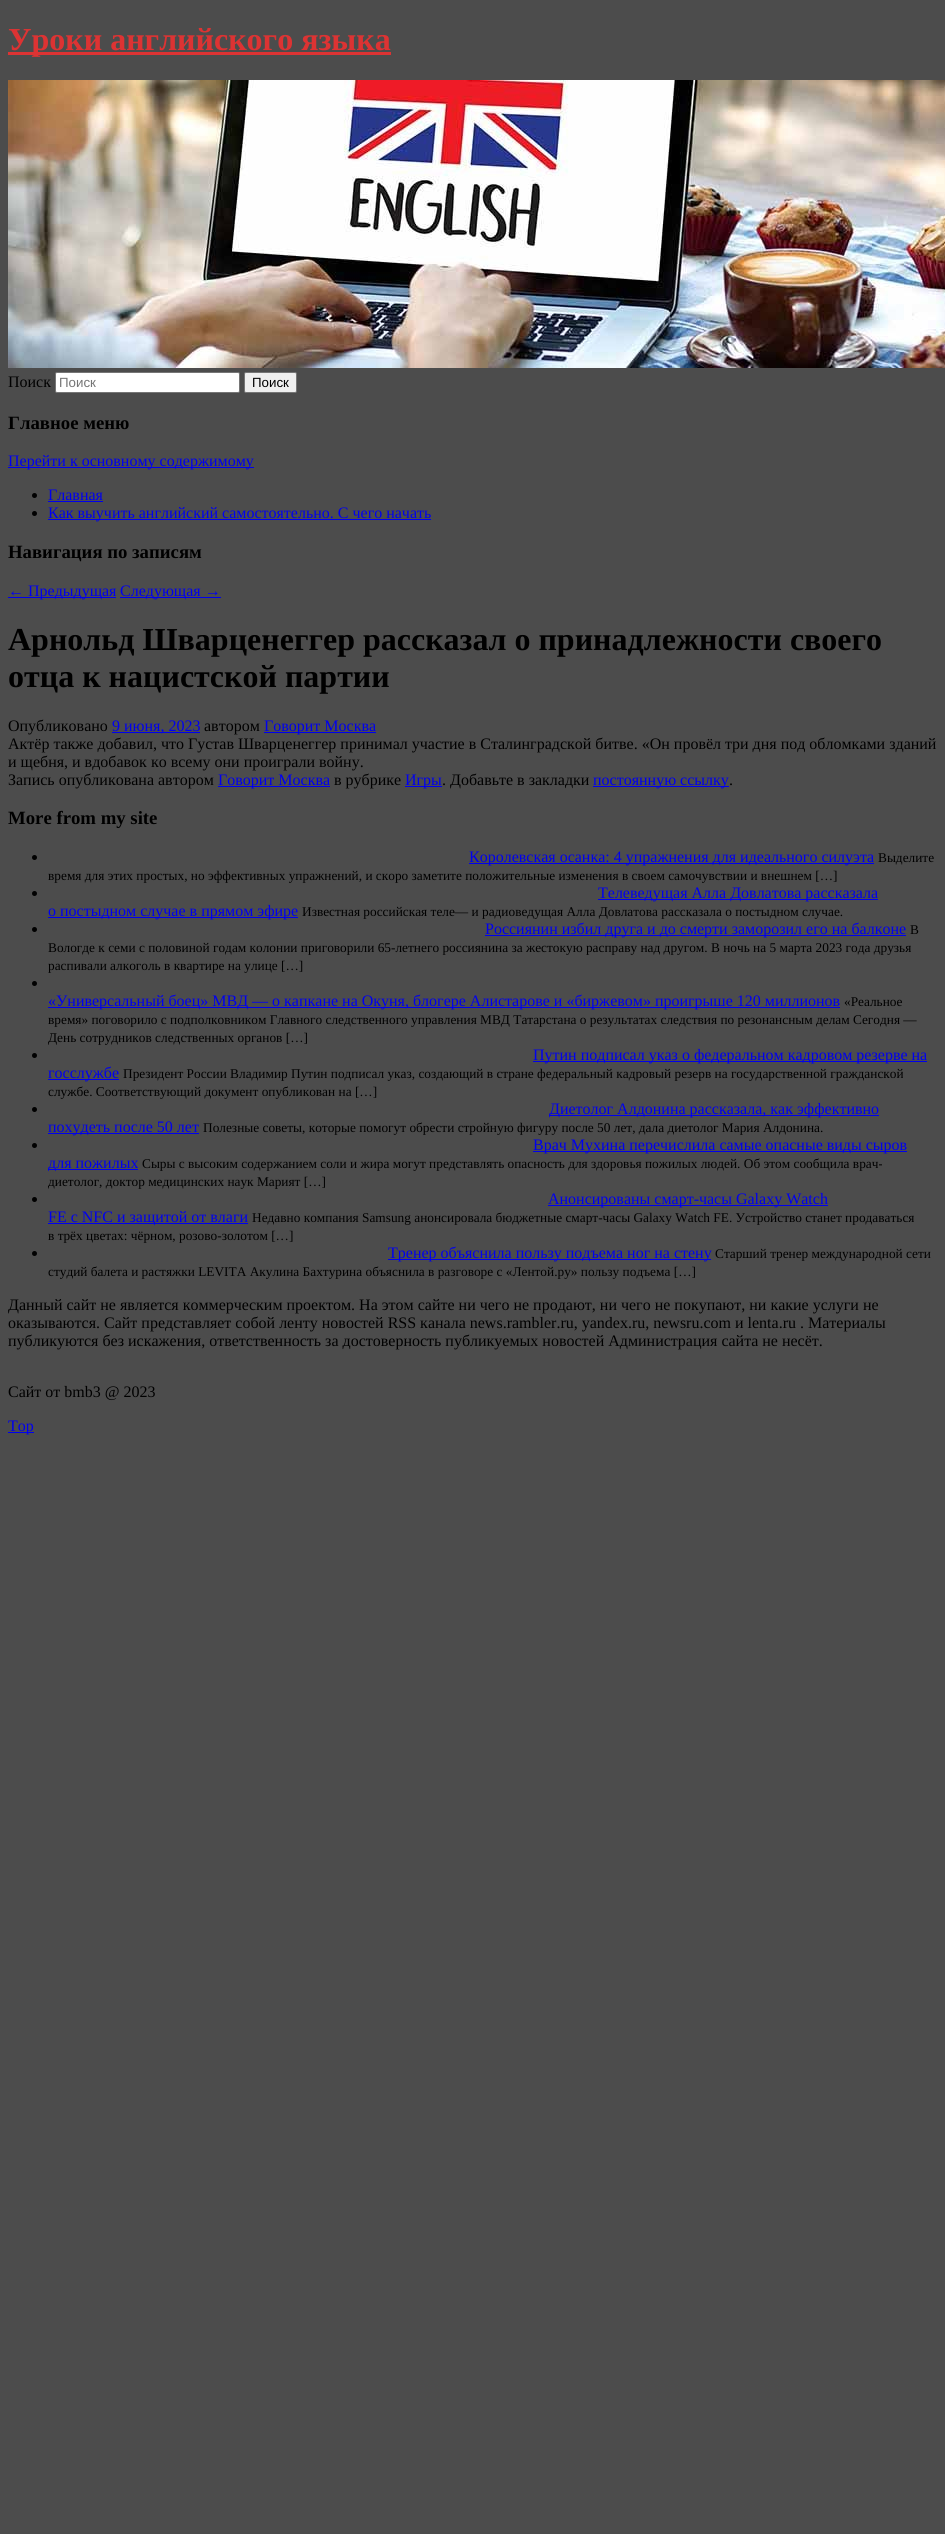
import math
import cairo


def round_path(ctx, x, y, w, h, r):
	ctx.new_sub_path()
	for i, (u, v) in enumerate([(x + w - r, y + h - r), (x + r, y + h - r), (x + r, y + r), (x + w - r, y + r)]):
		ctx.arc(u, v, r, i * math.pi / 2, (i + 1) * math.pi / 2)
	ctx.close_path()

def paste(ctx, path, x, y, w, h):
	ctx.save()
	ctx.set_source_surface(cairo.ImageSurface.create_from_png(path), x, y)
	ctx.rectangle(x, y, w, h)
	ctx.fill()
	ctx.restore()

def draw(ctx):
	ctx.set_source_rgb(0.298, 0.298, 0.298)
	ctx.paint()
	ctx.set_source_rgb(0.867, 0.2, 0.2)
	ctx.rectangle(8, 52, 383, 3)
	ctx.fill()
	ctx.select_font_face('Liberation Serif', cairo.FONT_SLANT_NORMAL, cairo.FONT_WEIGHT_BOLD)
	ctx.set_font_size(32)
	ctx.move_to(8, 50)
	ctx.show_text('Уроки английского языка')
	paste(ctx, 'media/1.png', 8, 80, 937, 288)
	ctx.select_font_face('Liberation Serif')
	ctx.set_font_size(16)
	ctx.set_source_rgb(0, 0, 0)
	ctx.move_to(8, 387)
	ctx.show_text('Поиск')
	ctx.set_source_rgb(1, 1, 1)
	round_path(ctx, 55.5, 372.5, 184, 20, 1.5)
	ctx.fill_preserve()
	ctx.set_source_rgb(0.463, 0.463, 0.463)
	ctx.set_line_width(1)
	ctx.stroke()
	ctx.select_font_face('Liberation Sans')
	ctx.set_font_size(13.33)
	ctx.set_source_rgb(0.459, 0.459, 0.459)
	ctx.move_to(59, 387)
	ctx.show_text('Поиск')
	ctx.set_source_rgb(0.937, 0.937, 0.937)
	round_path(ctx, 244.5, 372.5, 52, 20, 1.5)
	ctx.fill_preserve()
	ctx.set_source_rgb(0.463, 0.463, 0.463)
	ctx.stroke()
	ctx.set_source_rgb(0, 0, 0)
	ctx.move_to(252, 387)
	ctx.show_text('Поиск')
	ctx.select_font_face('Liberation Serif', cairo.FONT_SLANT_NORMAL, cairo.FONT_WEIGHT_BOLD)
	ctx.set_font_size(18.75)
	ctx.move_to(8, 429)
	ctx.show_text('Главное меню')
	ctx.set_source_rgb(0, 0, 0.933)
	ctx.rectangle(8, 467, 246, 1)
	ctx.fill()
	ctx.select_font_face('Liberation Serif')
	ctx.set_font_size(16)
	ctx.move_to(8, 466)
	ctx.show_text('Перейти к основному содержимому')
	ctx.set_source_rgb(0, 0, 0)
	ctx.new_path()
	ctx.arc(34.5, 495.5, 2.5, 0, 2 * math.pi)
	ctx.fill()
	ctx.set_source_rgb(0, 0, 0.933)
	ctx.move_to(48, 500)
	ctx.show_text('Главная')
	ctx.rectangle(48, 501, 55, 1)
	ctx.fill()
	ctx.set_source_rgb(0, 0, 0)
	ctx.arc(34.5, 513.5, 2.5, 0, 2 * math.pi)
	ctx.fill()
	ctx.set_source_rgb(0, 0, 0.933)
	ctx.rectangle(48, 519, 383, 1)
	ctx.fill()
	ctx.move_to(48, 518)
	ctx.show_text('Как выучить английский самостоятельно. С чего начать')
	ctx.select_font_face('Liberation Serif', cairo.FONT_SLANT_NORMAL, cairo.FONT_WEIGHT_BOLD)
	ctx.set_font_size(18.75)
	ctx.set_source_rgb(0, 0, 0)
	ctx.move_to(8, 558)
	ctx.show_text('Навигация по записям')
	ctx.set_source_rgb(0, 0, 0.933)
	ctx.rectangle(8, 597, 108, 1)
	ctx.fill()
	ctx.select_font_face('Liberation Serif')
	ctx.set_font_size(16)
	ctx.move_to(8, 596)
	ctx.show_text('← Предыдущая')
	ctx.rectangle(120, 597, 101, 1)
	ctx.fill()
	ctx.move_to(120, 596)
	ctx.show_text('Следующая →')
	ctx.select_font_face('Liberation Serif', cairo.FONT_SLANT_NORMAL, cairo.FONT_WEIGHT_BOLD)
	ctx.set_font_size(32)
	ctx.set_source_rgb(0, 0, 0)
	ctx.move_to(8, 650)
	ctx.show_text('Арнольд Шварценеггер рассказал о принадлежности своего')
	ctx.move_to(8, 687)
	ctx.show_text('отца к нацистской партии')
	ctx.select_font_face('Liberation Serif')
	ctx.set_font_size(16)
	ctx.move_to(8, 731)
	ctx.show_text('Опубликовано')
	ctx.set_source_rgb(0, 0, 0.933)
	ctx.rectangle(112, 732, 88, 1)
	ctx.fill()
	ctx.move_to(112, 731)
	ctx.show_text('9 июня, 2023')
	ctx.set_source_rgb(0, 0, 0)
	ctx.move_to(204, 731)
	ctx.show_text('автором')
	ctx.set_source_rgb(0, 0, 0.933)
	ctx.rectangle(264, 732, 112, 1)
	ctx.fill()
	ctx.move_to(264, 731)
	ctx.show_text('Говорит Москва')
	ctx.set_source_rgb(0, 0, 0)
	for x, y, s in [
		(8, 749, 'Актёр также добавил, что Густав Шварценеггер принимал участие в Сталинградской битве. «Он провёл три дня под обломками зданий'),
		(8, 767, 'и щебня, и вдобавок ко всему они проиграли войну.'),
		(8, 785, 'Запись опубликована автором'),
	]:
		ctx.move_to(x, y)
		ctx.show_text(s)
	ctx.set_source_rgb(0, 0, 0.933)
	ctx.rectangle(218, 786, 112, 1)
	ctx.fill()
	ctx.move_to(218, 785)
	ctx.show_text('Говорит Москва')
	ctx.set_source_rgb(0, 0, 0)
	ctx.move_to(334, 785)
	ctx.show_text('в рубрике')
	ctx.set_source_rgb(0, 0, 0.933)
	ctx.rectangle(405, 786, 37, 1)
	ctx.fill()
	ctx.move_to(405, 785)
	ctx.show_text('Игры')
	ctx.set_source_rgb(0, 0, 0)
	ctx.move_to(442, 785)
	ctx.show_text('. Добавьте в закладки')
	ctx.set_source_rgb(0, 0, 0.933)
	ctx.rectangle(593, 786, 136, 1)
	ctx.fill()
	ctx.move_to(593, 785)
	ctx.show_text('постоянную ссылку')
	ctx.set_source_rgb(0, 0, 0)
	ctx.move_to(729, 785)
	ctx.show_text('.')
	ctx.select_font_face('Liberation Serif', cairo.FONT_SLANT_NORMAL, cairo.FONT_WEIGHT_BOLD)
	ctx.set_font_size(18.75)
	ctx.move_to(8, 824)
	ctx.show_text('More from my site')
	ctx.new_path()
	ctx.arc(34.5, 857.5, 2.5, 0, 2 * math.pi)
	ctx.fill()
	ctx.set_source_rgb(0, 0, 0.933)
	ctx.rectangle(469, 863, 405, 1)
	ctx.fill()
	ctx.select_font_face('Liberation Serif')
	ctx.set_font_size(16)
	ctx.move_to(469, 862)
	ctx.show_text('Королевская осанка: 4 упражнения для идеального силуэта')
	ctx.set_font_size(13.33)
	ctx.set_source_rgb(0, 0, 0)
	ctx.move_to(878, 862)
	ctx.show_text('Выделите')
	ctx.move_to(48, 880)
	ctx.show_text('время для этих простых, но эффективных упражнений, и скоро заметите положительные изменения в своем самочувствии и внешнем […]')
	ctx.new_path()
	ctx.arc(34.5, 893.5, 2.5, 0, 2 * math.pi)
	ctx.fill()
	ctx.set_source_rgb(0, 0, 0.933)
	ctx.rectangle(598, 899, 280, 1)
	ctx.fill()
	ctx.set_font_size(16)
	ctx.move_to(598, 898)
	ctx.show_text('Телеведущая Алла Довлатова рассказала')
	ctx.rectangle(48, 917, 250, 1)
	ctx.fill()
	ctx.move_to(48, 916)
	ctx.show_text('о постыдном случае в прямом эфире')
	ctx.set_font_size(13.33)
	ctx.set_source_rgb(0, 0, 0)
	ctx.move_to(302, 916)
	ctx.show_text('Известная российская теле— и радиоведущая Алла Довлатова рассказала о постыдном случае.')
	ctx.new_path()
	ctx.arc(34.5, 929.5, 2.5, 0, 2 * math.pi)
	ctx.fill()
	ctx.set_source_rgb(0, 0, 0.933)
	ctx.rectangle(485, 935, 421, 1)
	ctx.fill()
	ctx.set_font_size(16)
	ctx.move_to(485, 934)
	ctx.show_text('Россиянин избил друга и до смерти заморозил его на балконе')
	ctx.set_font_size(13.33)
	ctx.set_source_rgb(0, 0, 0)
	for x, y, s in [
		(910, 934, 'В'),
		(48, 952, 'Вологде к семи с половиной годам колонии приговорили 65-летнего россиянина за жестокую расправу над другом. В ночь на 5 марта 2023 года друзья'),
		(48, 970, 'распивали алкоголь в квартире на улице […]'),
	]:
		ctx.move_to(x, y)
		ctx.show_text(s)
	ctx.new_path()
	ctx.arc(34.5, 983.5, 2.5, 0, 2 * math.pi)
	ctx.fill()
	ctx.set_source_rgb(0, 0, 0.933)
	ctx.rectangle(48, 1007, 792, 1)
	ctx.fill()
	ctx.set_font_size(16)
	ctx.move_to(48, 1006)
	ctx.show_text('«Универсальный боец» МВД — о капкане на Окуня, блогере Алистарове и «биржевом» проигрыше 120 миллионов')
	ctx.set_font_size(13.33)
	ctx.set_source_rgb(0, 0, 0)
	for x, y, s in [
		(844, 1006, '«Реальное'),
		(48, 1024, 'время» поговорило с подполковником Главного следственного управления МВД Татарстана о результатах следствия по резонансным делам Сегодня —'),
		(48, 1042, 'День сотрудников следственных органов […]'),
	]:
		ctx.move_to(x, y)
		ctx.show_text(s)
	ctx.new_path()
	ctx.arc(34.5, 1055.5, 2.5, 0, 2 * math.pi)
	ctx.fill()
	ctx.set_source_rgb(0, 0, 0.933)
	ctx.rectangle(533, 1061, 394, 1)
	ctx.fill()
	ctx.set_font_size(16)
	ctx.move_to(533, 1060)
	ctx.show_text('Путин подписал указ о федеральном кадровом резерве на')
	ctx.rectangle(48, 1079, 71, 1)
	ctx.fill()
	ctx.move_to(48, 1078)
	ctx.show_text('госслужбе')
	ctx.set_font_size(13.33)
	ctx.set_source_rgb(0, 0, 0)
	ctx.move_to(123, 1078)
	ctx.show_text('Президент России Владимир Путин подписал указ, создающий в стране федеральный кадровый резерв на государственной гражданской')
	ctx.move_to(48, 1096)
	ctx.show_text('службе. Соответствующий документ опубликован на […]')
	ctx.new_path()
	ctx.arc(34.5, 1109.5, 2.5, 0, 2 * math.pi)
	ctx.fill()
	ctx.set_source_rgb(0, 0, 0.933)
	ctx.rectangle(549, 1115, 330, 1)
	ctx.fill()
	ctx.set_font_size(16)
	ctx.move_to(549, 1114)
	ctx.show_text('Диетолог Алдонина рассказала, как эффективно')
	ctx.rectangle(48, 1133, 151, 1)
	ctx.fill()
	ctx.move_to(48, 1132)
	ctx.show_text('похудеть после 50 лет')
	ctx.set_font_size(13.33)
	ctx.set_source_rgb(0, 0, 0)
	ctx.move_to(203, 1132)
	ctx.show_text('Полезные советы, которые помогут обрести стройную фигуру после 50 лет, дала диетолог Мария Алдонина.')
	ctx.new_path()
	ctx.arc(34.5, 1145.5, 2.5, 0, 2 * math.pi)
	ctx.fill()
	ctx.set_source_rgb(0, 0, 0.933)
	ctx.rectangle(533, 1151, 374, 1)
	ctx.fill()
	ctx.set_font_size(16)
	ctx.move_to(533, 1150)
	ctx.show_text('Врач Мухина перечислила самые опасные виды сыров')
	ctx.rectangle(48, 1169, 90, 1)
	ctx.fill()
	ctx.move_to(48, 1168)
	ctx.show_text('для пожилых')
	ctx.set_font_size(13.33)
	ctx.set_source_rgb(0, 0, 0)
	ctx.move_to(142, 1168)
	ctx.show_text('Сыры с высоким содержанием соли и жира могут представлять опасность для здоровья пожилых людей. Об этом сообщила врач-')
	ctx.move_to(48, 1186)
	ctx.show_text('диетолог, доктор медицинских наук Марият […]')
	ctx.new_path()
	ctx.arc(34.5, 1199.5, 2.5, 0, 2 * math.pi)
	ctx.fill()
	ctx.set_source_rgb(0, 0, 0.933)
	ctx.rectangle(548, 1205, 280, 1)
	ctx.fill()
	ctx.set_font_size(16)
	ctx.move_to(548, 1204)
	ctx.show_text('Анонсированы смарт-часы Galaxy Watch')
	ctx.rectangle(48, 1223, 200, 1)
	ctx.fill()
	ctx.move_to(48, 1222)
	ctx.show_text('FE с NFC и защитой от влаги')
	ctx.set_font_size(13.33)
	ctx.set_source_rgb(0, 0, 0)
	ctx.move_to(252, 1222)
	ctx.show_text('Недавно компания Samsung анонсировала бюджетные смарт-часы Galaxy Watch FE. Устройство станет продаваться')
	ctx.move_to(48, 1240)
	ctx.show_text('в трёх цветах: чёрном, розово-золотом […]')
	ctx.new_path()
	ctx.arc(34.5, 1253.5, 2.5, 0, 2 * math.pi)
	ctx.fill()
	ctx.set_source_rgb(0, 0, 0.933)
	ctx.rectangle(388, 1259, 323, 1)
	ctx.fill()
	ctx.set_font_size(16)
	ctx.move_to(388, 1258)
	ctx.show_text('Тренер объяснила пользу подъема ног на стену')
	ctx.set_font_size(13.33)
	ctx.set_source_rgb(0, 0, 0)
	ctx.move_to(715, 1258)
	ctx.show_text('Старший тренер международной сети')
	ctx.move_to(48, 1276)
	ctx.show_text('студий балета и растяжки LEVITA Акулина Бахтурина объяснила в разговоре с «Лентой.ру» пользу подъема […]')
	ctx.set_font_size(16)
	for x, y, s in [
		(8, 1310, 'Данный сайт не является коммерческим проектом. На этом сайте ни чего не продают, ни чего не покупают, ни какие услуги не'),
		(8, 1328, 'оказываются. Сайт представляет собой ленту новостей RSS канала news.rambler.ru, yandex.ru, newsru.com и lenta.ru . Материалы'),
		(8, 1346, 'публикуются без искажения, ответственность за достоверность публикуемых новостей Администрация сайта не несёт.'),
		(8, 1397, 'Сайт от bmb3 @ 2023'),
	]:
		ctx.move_to(x, y)
		ctx.show_text(s)
	ctx.set_source_rgb(0, 0, 0.933)
	ctx.rectangle(8, 1432, 26, 1)
	ctx.fill()
	ctx.move_to(8, 1431)
	ctx.show_text('Top')


surface = cairo.ImageSurface(cairo.FORMAT_RGB24, 945, 2534)
ctx = cairo.Context(surface)
options = cairo.FontOptions()
options.set_hint_metrics(cairo.HINT_METRICS_OFF)
options.set_hint_style(cairo.HINT_STYLE_NONE)
ctx.set_font_options(options)
ctx.set_miter_limit(4)
draw(ctx)
surface.write_to_png('image.png')
